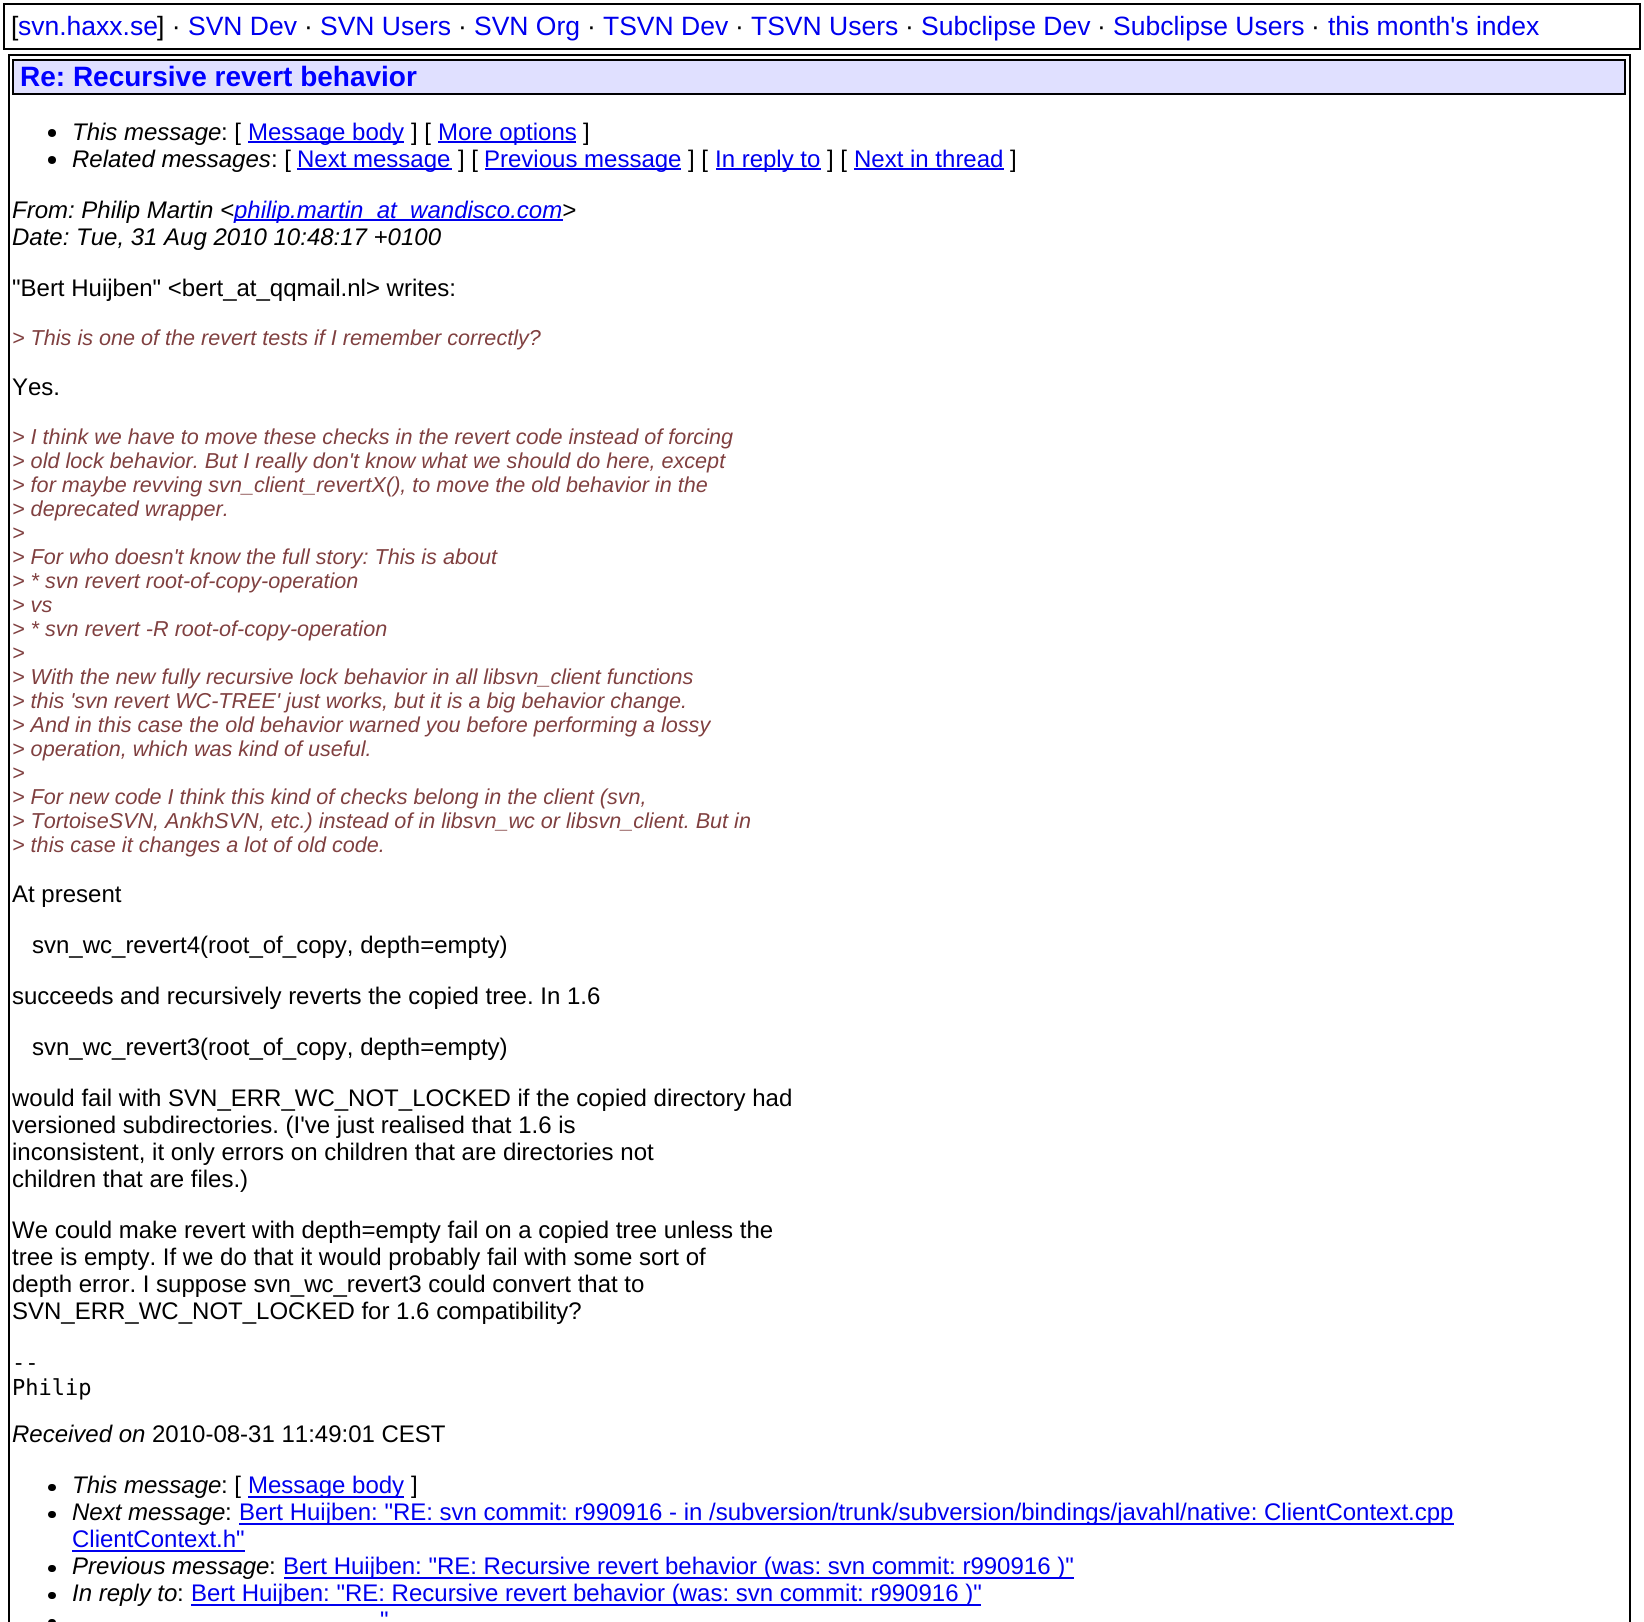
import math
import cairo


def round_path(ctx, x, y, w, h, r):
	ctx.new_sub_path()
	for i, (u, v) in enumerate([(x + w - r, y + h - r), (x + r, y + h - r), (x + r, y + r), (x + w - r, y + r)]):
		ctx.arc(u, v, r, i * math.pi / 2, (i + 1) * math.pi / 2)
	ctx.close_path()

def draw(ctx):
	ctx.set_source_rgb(1, 1, 1)
	ctx.paint()
	ctx.rectangle(4, 4, 1636, 45)
	ctx.set_source_rgb(0, 0, 0)
	ctx.stroke()
	ctx.select_font_face('Liberation Sans')
	ctx.set_font_size(26.5)
	ctx.move_to(11, 35)
	ctx.show_text('[')
	ctx.set_source_rgb(0, 0, 0.933)
	ctx.move_to(18, 35)
	ctx.show_text('svn.haxx.se')
	ctx.set_source_rgb(0, 0, 0)
	ctx.move_to(157, 35)
	ctx.show_text('] ·')
	ctx.set_source_rgb(0, 0, 0.933)
	ctx.move_to(188, 35)
	ctx.show_text('SVN Dev')
	ctx.set_source_rgb(0, 0, 0)
	ctx.move_to(304, 35)
	ctx.show_text('·')
	ctx.set_source_rgb(0, 0, 0.933)
	ctx.move_to(320, 35)
	ctx.show_text('SVN Users')
	ctx.set_source_rgb(0, 0, 0)
	ctx.move_to(458, 35)
	ctx.show_text('·')
	ctx.set_source_rgb(0, 0, 0.933)
	ctx.move_to(474, 35)
	ctx.show_text('SVN Org')
	ctx.set_source_rgb(0, 0, 0)
	ctx.move_to(587, 35)
	ctx.show_text('·')
	ctx.set_source_rgb(0, 0, 0.933)
	ctx.move_to(603, 35)
	ctx.show_text('TSVN Dev')
	ctx.set_source_rgb(0, 0, 0)
	ctx.move_to(735, 35)
	ctx.show_text('·')
	ctx.set_source_rgb(0, 0, 0.933)
	ctx.move_to(751, 35)
	ctx.show_text('TSVN Users')
	ctx.set_source_rgb(0, 0, 0)
	ctx.move_to(905, 35)
	ctx.show_text('·')
	ctx.set_source_rgb(0, 0, 0.933)
	ctx.move_to(921, 35)
	ctx.show_text('Subclipse Dev')
	ctx.set_source_rgb(0, 0, 0)
	ctx.move_to(1097, 35)
	ctx.show_text('·')
	ctx.set_source_rgb(0, 0, 0.933)
	ctx.move_to(1113, 35)
	ctx.show_text('Subclipse Users')
	ctx.set_source_rgb(0, 0, 0)
	ctx.move_to(1311, 35)
	ctx.show_text('·')
	ctx.set_source_rgb(0, 0, 0.933)
	ctx.move_to(1328, 35)
	ctx.show_text('this month\'s index')
	ctx.rectangle(9, 55, 1621, 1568)
	ctx.set_source_rgb(0, 0, 0)
	ctx.stroke()
	ctx.set_source_rgb(0.878, 0.878, 1)
	ctx.rectangle(13, 60, 1612, 34)
	ctx.fill_preserve()
	ctx.set_source_rgb(0, 0, 0)
	ctx.stroke()
	ctx.select_font_face('Liberation Sans', cairo.FONT_SLANT_NORMAL, cairo.FONT_WEIGHT_BOLD)
	ctx.set_font_size(28)
	ctx.set_source_rgb(0, 0, 1)
	ctx.move_to(20, 86)
	ctx.show_text('Re: Recursive revert behavior')
	ctx.set_source_rgb(0, 0, 0)
	ctx.new_path()
	ctx.arc(52, 133, 4, 0, 2 * math.pi)
	ctx.fill()
	ctx.select_font_face('Liberation Sans', cairo.FONT_SLANT_ITALIC)
	ctx.set_font_size(24)
	ctx.move_to(72, 140)
	ctx.show_text('This message')
	ctx.select_font_face('Liberation Sans')
	ctx.move_to(221, 140)
	ctx.show_text(': [')
	ctx.set_source_rgb(0, 0, 0.933)
	ctx.rectangle(248, 141, 156, 2)
	ctx.fill()
	ctx.move_to(248, 140)
	ctx.show_text('Message body')
	ctx.set_source_rgb(0, 0, 0)
	ctx.move_to(411, 140)
	ctx.show_text('] [')
	ctx.set_source_rgb(0, 0, 0.933)
	ctx.rectangle(438, 141, 138, 2)
	ctx.fill()
	ctx.move_to(438, 140)
	ctx.show_text('More options')
	ctx.set_source_rgb(0, 0, 0)
	ctx.move_to(583, 140)
	ctx.show_text(']')
	ctx.new_path()
	ctx.arc(52, 160, 4, 0, 2 * math.pi)
	ctx.fill()
	ctx.select_font_face('Liberation Sans', cairo.FONT_SLANT_ITALIC)
	ctx.move_to(72, 167)
	ctx.show_text('Related messages')
	ctx.select_font_face('Liberation Sans')
	ctx.move_to(271, 167)
	ctx.show_text(': [')
	ctx.set_source_rgb(0, 0, 0.933)
	ctx.rectangle(297, 168, 155, 2)
	ctx.fill()
	ctx.move_to(297, 167)
	ctx.show_text('Next message')
	ctx.set_source_rgb(0, 0, 0)
	ctx.move_to(458, 167)
	ctx.show_text('] [')
	ctx.set_source_rgb(0, 0, 0.933)
	ctx.rectangle(485, 168, 196, 2)
	ctx.fill()
	ctx.move_to(484, 167)
	ctx.show_text('Previous message')
	ctx.set_source_rgb(0, 0, 0)
	ctx.move_to(688, 167)
	ctx.show_text('] [')
	ctx.set_source_rgb(0, 0, 0.933)
	ctx.rectangle(716, 168, 105, 2)
	ctx.fill()
	ctx.move_to(715, 167)
	ctx.show_text('In reply to')
	ctx.set_source_rgb(0, 0, 0)
	ctx.move_to(827, 167)
	ctx.show_text('] [')
	ctx.set_source_rgb(0, 0, 0.933)
	ctx.move_to(854, 167)
	ctx.show_text('Next in thread')
	ctx.rectangle(854, 168, 150, 2)
	ctx.fill()
	ctx.set_source_rgb(0, 0, 0)
	ctx.move_to(1010, 167)
	ctx.show_text(']')
	ctx.select_font_face('Liberation Sans', cairo.FONT_SLANT_ITALIC)
	ctx.move_to(12, 218)
	ctx.show_text('From: Philip Martin <')
	ctx.set_source_rgb(0, 0, 0.933)
	ctx.rectangle(234, 219, 329, 2)
	ctx.fill()
	ctx.move_to(234, 218)
	ctx.show_text('philip.martin_at_wandisco.com')
	ctx.set_source_rgb(0, 0, 0)
	ctx.move_to(562, 218)
	ctx.show_text('>')
	ctx.move_to(12, 245)
	ctx.show_text('Date: Tue, 31 Aug 2010 10:48:17 +0100')
	ctx.select_font_face('Liberation Sans')
	ctx.move_to(12, 296)
	ctx.show_text('"Bert Huijben" <bert_at_qqmail.nl> writes:')
	ctx.select_font_face('Liberation Sans', cairo.FONT_SLANT_ITALIC)
	ctx.set_font_size(21.6)
	ctx.set_source_rgb(0.502, 0.251, 0.251)
	ctx.move_to(12, 345)
	ctx.show_text('> This is one of the revert tests if I remember correctly?')
	ctx.select_font_face('Liberation Sans')
	ctx.set_font_size(24)
	ctx.set_source_rgb(0, 0, 0)
	ctx.move_to(12, 395)
	ctx.show_text('Yes.')
	ctx.select_font_face('Liberation Sans', cairo.FONT_SLANT_ITALIC)
	ctx.set_font_size(21.6)
	ctx.set_source_rgb(0.502, 0.251, 0.251)
	for x, y, s in [
		(12, 444, '> I think we have to move these checks in the revert code instead of forcing'),
		(12, 468, '> old lock behavior. But I really don\'t know what we should do here, except'),
		(12, 492, '> for maybe revving svn_client_revertX(), to move the old behavior in the'),
		(12, 516, '> deprecated wrapper.'),
		(12, 540, '>'),
		(12, 564, '> For who doesn\'t know the full story: This is about'),
		(12, 588, '> * svn revert root-of-copy-operation'),
		(12, 612, '> vs'),
		(12, 636, '> * svn revert -R root-of-copy-operation'),
		(12, 660, '>'),
		(12, 684, '> With the new fully recursive lock behavior in all libsvn_client functions'),
		(12, 708, '> this \'svn revert WC-TREE\' just works, but it is a big behavior change.'),
		(12, 732, '> And in this case the old behavior warned you before performing a lossy'),
		(12, 756, '> operation, which was kind of useful.'),
		(12, 780, '>'),
		(12, 804, '> For new code I think this kind of checks belong in the client (svn,'),
		(12, 828, '> TortoiseSVN, AnkhSVN, etc.) instead of in libsvn_wc or libsvn_client. But in'),
		(12, 852, '> this case it changes a lot of old code.'),
	]:
		ctx.move_to(x, y)
		ctx.show_text(s)
	ctx.select_font_face('Liberation Sans')
	ctx.set_font_size(24)
	ctx.set_source_rgb(0, 0, 0)
	for x, y, s in [
		(12, 902, 'At present'),
		(32, 953, 'svn_wc_revert4(root_of_copy, depth=empty)'),
		(12, 1004, 'succeeds and recursively reverts the copied tree. In 1.6'),
		(32, 1055, 'svn_wc_revert3(root_of_copy, depth=empty)'),
		(12, 1106, 'would fail with SVN_ERR_WC_NOT_LOCKED if the copied directory had'),
		(12, 1133, 'versioned subdirectories. (I\'ve just realised that 1.6 is'),
		(12, 1160, 'inconsistent, it only errors on children that are directories not'),
		(12, 1187, 'children that are files.)'),
		(12, 1238, 'We could make revert with depth=empty fail on a copied tree unless the'),
		(12, 1265, 'tree is empty. If we do that it would probably fail with some sort of'),
		(12, 1292, 'depth error. I suppose svn_wc_revert3 could convert that to'),
		(12, 1319, 'SVN_ERR_WC_NOT_LOCKED for 1.6 compatibility?'),
	]:
		ctx.move_to(x, y)
		ctx.show_text(s)
	ctx.select_font_face('DejaVu Sans Mono')
	ctx.set_font_size(22)
	ctx.move_to(12, 1370)
	ctx.show_text('--')
	ctx.move_to(12, 1395)
	ctx.show_text('Philip')
	ctx.select_font_face('Liberation Sans', cairo.FONT_SLANT_ITALIC)
	ctx.set_font_size(24)
	ctx.move_to(12, 1442)
	ctx.show_text('Received on')
	ctx.select_font_face('Liberation Sans')
	ctx.move_to(152, 1442)
	ctx.show_text('2010-08-31 11:49:01 CEST')
	round_path(ctx, 48, 1484, 8, 7, 3.5)
	ctx.fill()
	ctx.select_font_face('Liberation Sans', cairo.FONT_SLANT_ITALIC)
	ctx.move_to(72, 1493)
	ctx.show_text('This message')
	ctx.select_font_face('Liberation Sans')
	ctx.move_to(221, 1493)
	ctx.show_text(': [')
	ctx.set_source_rgb(0, 0, 0.933)
	ctx.rectangle(248, 1496, 156, 2)
	ctx.fill()
	ctx.move_to(248, 1493)
	ctx.show_text('Message body')
	ctx.set_source_rgb(0, 0, 0)
	ctx.move_to(411, 1493)
	ctx.show_text(']')
	round_path(ctx, 48, 1511, 8, 7, 3.5)
	ctx.fill()
	ctx.select_font_face('Liberation Sans', cairo.FONT_SLANT_ITALIC)
	ctx.move_to(72, 1520)
	ctx.show_text('Next message')
	ctx.select_font_face('Liberation Sans')
	ctx.move_to(225, 1520)
	ctx.show_text(':')
	ctx.set_source_rgb(0, 0, 0.933)
	ctx.rectangle(239, 1523, 1215, 2)
	ctx.fill()
	ctx.move_to(239, 1520)
	ctx.show_text('Bert Huijben: "RE: svn commit: r990916 - in /subversion/trunk/subversion/bindings/javahl/native: ClientContext.cpp')
	ctx.move_to(72, 1547)
	ctx.show_text('ClientContext.h"')
	ctx.rectangle(72, 1550, 173, 2)
	ctx.fill()
	ctx.set_source_rgb(0, 0, 0)
	round_path(ctx, 48, 1565, 8, 7, 3.5)
	ctx.fill()
	ctx.select_font_face('Liberation Sans', cairo.FONT_SLANT_ITALIC)
	ctx.move_to(72, 1574)
	ctx.show_text('Previous message')
	ctx.select_font_face('Liberation Sans')
	ctx.move_to(269, 1574)
	ctx.show_text(':')
	ctx.set_source_rgb(0, 0, 0.933)
	ctx.rectangle(284, 1577, 790, 2)
	ctx.fill()
	ctx.move_to(283, 1574)
	ctx.show_text('Bert Huijben: "RE: Recursive revert behavior (was: svn commit: r990916 )"')
	ctx.set_source_rgb(0, 0, 0)
	round_path(ctx, 48, 1592, 8, 7, 3.5)
	ctx.fill()
	ctx.select_font_face('Liberation Sans', cairo.FONT_SLANT_ITALIC)
	ctx.move_to(72, 1601)
	ctx.show_text('In reply to')
	ctx.select_font_face('Liberation Sans')
	ctx.move_to(177, 1601)
	ctx.show_text(':')
	ctx.set_source_rgb(0, 0, 0.933)
	ctx.rectangle(191, 1604, 790, 2)
	ctx.fill()
	ctx.move_to(191, 1601)
	ctx.show_text('Bert Huijben: "RE: Recursive revert behavior (was: svn commit: r990916 )"')
	ctx.move_to(380, 1628)
	ctx.show_text('"')
	ctx.set_source_rgb(0, 0, 0)
	round_path(ctx, 48, 1619, 8, 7, 3.5)
	ctx.fill()


surface = cairo.ImageSurface(cairo.FORMAT_RGB24, 1644, 1622)
ctx = cairo.Context(surface)
options = cairo.FontOptions()
options.set_hint_metrics(cairo.HINT_METRICS_OFF)
options.set_hint_style(cairo.HINT_STYLE_NONE)
ctx.set_font_options(options)
ctx.set_miter_limit(4)
draw(ctx)
surface.write_to_png('image.png')
